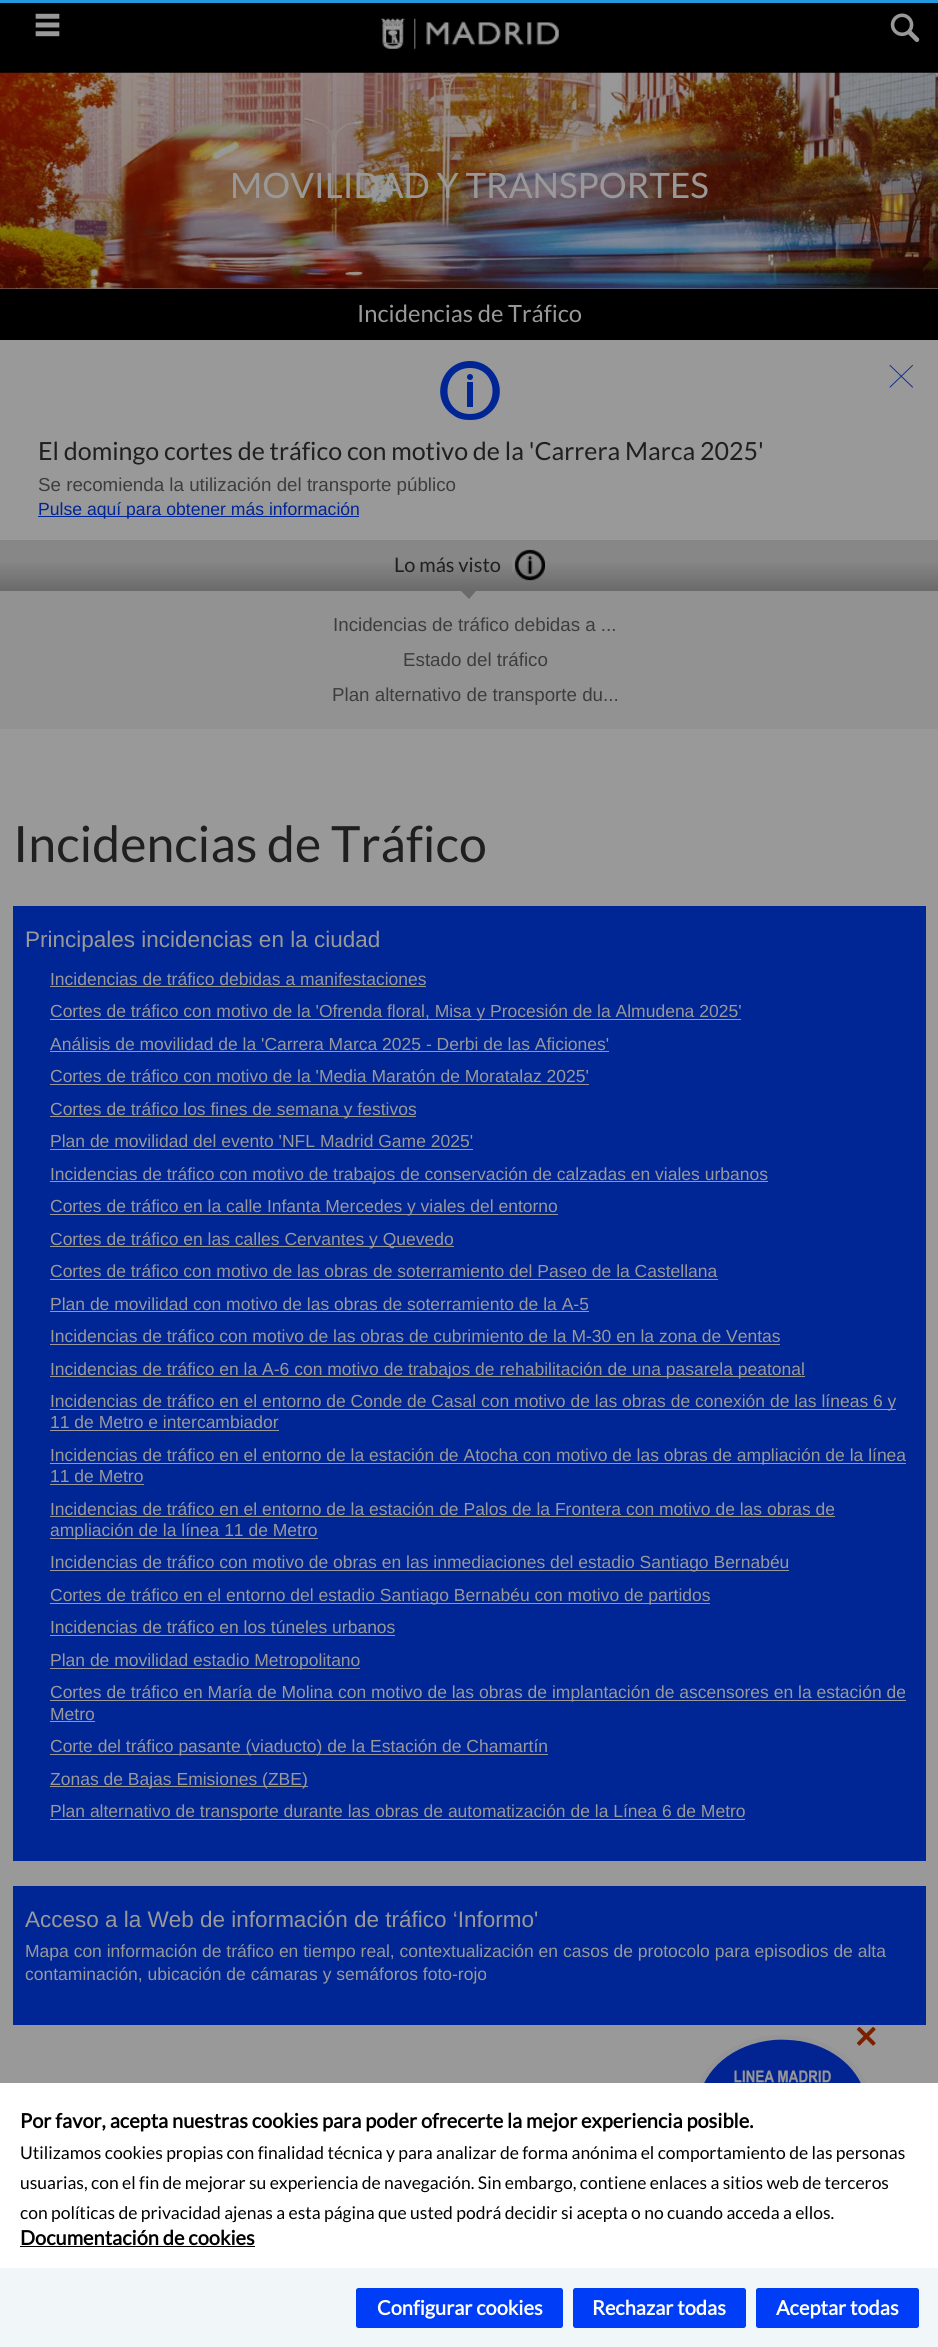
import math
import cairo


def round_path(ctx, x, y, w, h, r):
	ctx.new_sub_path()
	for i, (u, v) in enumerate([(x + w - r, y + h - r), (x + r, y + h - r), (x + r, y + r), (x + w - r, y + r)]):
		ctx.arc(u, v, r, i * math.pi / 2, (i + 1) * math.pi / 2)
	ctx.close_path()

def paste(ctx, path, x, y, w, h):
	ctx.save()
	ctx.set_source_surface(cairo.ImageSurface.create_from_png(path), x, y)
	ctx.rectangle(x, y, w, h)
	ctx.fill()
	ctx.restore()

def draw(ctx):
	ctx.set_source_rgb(0.6, 0.6, 0.6)
	ctx.paint()
	ctx.set_source_rgb(0.133, 0.6, 0.867)
	ctx.rectangle(0, 0, 938, 3)
	ctx.fill()
	ctx.set_source_rgb(0.569, 0.569, 0.569)
	ctx.rectangle(0, 288, 938, 1)
	ctx.fill()
	ctx.set_source_rgb(0, 0, 0)
	ctx.rectangle(0, 3, 938, 70)
	ctx.fill()
	paste(ctx, 'media/1.png', 35, 13, 25, 24)
	paste(ctx, 'media/2.png', 381, 18, 178, 31)
	paste(ctx, 'media/3.png', 890, 13, 30, 29)
	paste(ctx, 'media/4.png', 0, 72, 938, 217)
	ctx.select_font_face('Lato')
	ctx.set_font_size(35)
	ctx.set_source_rgb(0.6, 0.6, 0.6)
	ctx.move_to(230, 198)
	ctx.show_text('MOVILIDAD Y TRANSPORTES')
	ctx.set_source_rgb(0, 0, 0)
	ctx.rectangle(0, 289, 938, 51)
	ctx.fill()
	ctx.set_font_size(23.75)
	ctx.set_source_rgb(0.6, 0.6, 0.6)
	ctx.move_to(357, 322)
	ctx.show_text('Incidencias de Tráfico')
	paste(ctx, 'media/5.png', 889, 364, 24, 24)
	ctx.set_source_rgb(0, 0.145, 0.58)
	ctx.new_path()
	ctx.move_to(467, 407)
	ctx.line_to(473, 407)
	ctx.line_to(473, 382)
	ctx.line_to(467, 382)
	ctx.close_path()
	ctx.move_to(470, 380)
	ctx.curve_to(474, 380, 474, 374, 470, 374)
	ctx.curve_to(466, 374, 466, 380, 470, 380)
	ctx.close_path()
	ctx.move_to(470, 361)
	ctx.curve_to(441, 361, 429, 399, 453, 415)
	ctx.curve_to(458, 419, 464, 420, 470, 420)
	ctx.curve_to(476, 420, 482, 419, 487, 415)
	ctx.curve_to(511, 399, 499, 361, 470, 361)
	ctx.close_path()
	ctx.move_to(470, 414)
	ctx.curve_to(440, 414, 440, 368, 470, 368)
	ctx.curve_to(500, 368, 500, 414, 470, 414)
	ctx.close_path()
	ctx.fill()
	ctx.set_font_size(25)
	ctx.set_source_rgb(0.122, 0.122, 0.122)
	ctx.move_to(38, 460)
	ctx.show_text('El domingo cortes de tráfico con motivo de la \'Carrera Marca 2025\'')
	ctx.select_font_face('Liberation Sans')
	ctx.set_font_size(18.75)
	ctx.set_source_rgb(0.239, 0.239, 0.239)
	ctx.move_to(38, 491)
	ctx.show_text('Se recomienda la utilización del transporte público')
	ctx.set_source_rgb(0, 0.145, 0.58)
	ctx.rectangle(38, 516, 321, 1)
	ctx.fill()
	ctx.set_font_size(17.6)
	ctx.move_to(38, 515)
	ctx.show_text('Pulse aquí para obtener más información')
	ctx.set_source_rgb(0.573, 0.573, 0.573)
	ctx.rectangle(0, 591, 938, 138)
	ctx.fill()
	gradient = cairo.LinearGradient(469, 540, 469, 591)
	gradient.add_color_stop_rgba(0, 0.533, 0.529, 0.529, 1)
	gradient.add_color_stop_rgba(0.4, 0.533, 0.529, 0.529, 1)
	gradient.add_color_stop_rgba(1, 0.416, 0.416, 0.416, 1)
	ctx.set_source(gradient)
	ctx.rectangle(0, 540, 938, 51)
	ctx.fill()
	ctx.select_font_face('Lato')
	ctx.set_font_size(20)
	ctx.set_source_rgb(0.122, 0.122, 0.122)
	ctx.move_to(394, 572)
	ctx.show_text('Lo más visto')
	paste(ctx, 'media/6.png', 512, 549, 33, 32)
	ctx.set_source_rgb(0.416, 0.416, 0.416)
	ctx.new_path()
	ctx.move_to(461, 591)
	ctx.line_to(476, 591)
	ctx.line_to(469, 599)
	ctx.close_path()
	ctx.fill()
	ctx.select_font_face('Liberation Sans')
	ctx.set_font_size(18.75)
	ctx.set_source_rgb(0.239, 0.239, 0.239)
	for x, y, s in [
		(333, 631, 'Incidencias de tráfico debidas a ...'),
		(403, 666, 'Estado del tráfico'),
		(332, 701, 'Plan alternativo de transporte du...'),
	]:
		ctx.move_to(x, y)
		ctx.show_text(s)
	ctx.select_font_face('Lato')
	ctx.set_font_size(50)
	ctx.set_source_rgb(0.122, 0.122, 0.122)
	ctx.move_to(13, 862)
	ctx.show_text('Incidencias de Tráfico')
	ctx.set_source_rgb(0, 0.145, 0.58)
	ctx.rectangle(13, 906, 913, 955)
	ctx.fill()
	ctx.select_font_face('Liberation Sans')
	ctx.set_font_size(22.5)
	ctx.set_source_rgb(0.6, 0.6, 0.6)
	ctx.move_to(25, 947)
	ctx.show_text('Principales incidencias en la ciudad')
	ctx.set_font_size(17.5)
	ctx.move_to(50, 985)
	ctx.show_text('Incidencias de tráfico debidas a manifestaciones')
	ctx.rectangle(50, 986, 376, 1)
	ctx.fill()
	ctx.rectangle(50, 1019, 691, 1)
	ctx.fill()
	ctx.move_to(50, 1017)
	ctx.show_text('Cortes de tráfico con motivo de la \'Ofrenda floral, Misa y Procesión de la Almudena 2025\'')
	ctx.move_to(50, 1050)
	ctx.show_text('Análisis de movilidad de la \'Carrera Marca 2025 - Derbi de las Aficiones\'')
	ctx.rectangle(50, 1051, 559, 1)
	ctx.fill()
	ctx.move_to(50, 1082)
	ctx.show_text('Cortes de tráfico con motivo de la \'Media Maratón de Moratalaz 2025\'')
	ctx.rectangle(50, 1084, 539, 1)
	ctx.fill()
	ctx.rectangle(50, 1116, 366, 1)
	ctx.fill()
	ctx.move_to(50, 1115)
	ctx.show_text('Cortes de tráfico los fines de semana y festivos')
	ctx.move_to(50, 1147)
	ctx.show_text('Plan de movilidad del evento \'NFL Madrid Game 2025\'')
	ctx.rectangle(50, 1149, 423, 1)
	ctx.fill()
	ctx.rectangle(50, 1181, 718, 1)
	ctx.fill()
	ctx.move_to(50, 1180)
	ctx.show_text('Incidencias de tráfico con motivo de trabajos de conservación de calzadas en viales urbanos')
	ctx.rectangle(50, 1214, 508, 1)
	ctx.fill()
	ctx.move_to(50, 1212)
	ctx.show_text('Cortes de tráfico en la calle Infanta Mercedes y viales del entorno')
	ctx.rectangle(50, 1246, 404, 1)
	ctx.fill()
	ctx.move_to(50, 1245)
	ctx.show_text('Cortes de tráfico en las calles Cervantes y Quevedo')
	ctx.move_to(50, 1277)
	ctx.show_text('Cortes de tráfico con motivo de las obras de soterramiento del Paseo de la Castellana')
	ctx.rectangle(50, 1279, 668, 1)
	ctx.fill()
	ctx.move_to(50, 1310)
	ctx.show_text('Plan de movilidad con motivo de las obras de soterramiento de la A-5')
	ctx.rectangle(50, 1311, 539, 1)
	ctx.fill()
	ctx.move_to(50, 1342)
	ctx.show_text('Incidencias de tráfico con motivo de las obras de cubrimiento de la M-30 en la zona de Ventas')
	ctx.rectangle(50, 1344, 730, 1)
	ctx.fill()
	ctx.rectangle(50, 1376, 755, 1)
	ctx.fill()
	ctx.move_to(50, 1375)
	ctx.show_text('Incidencias de tráfico en la A-6 con motivo de trabajos de rehabilitación de una pasarela peatonal')
	ctx.rectangle(50, 1409, 846, 1)
	ctx.fill()
	ctx.move_to(50, 1407)
	ctx.show_text('Incidencias de tráfico en el entorno de Conde de Casal con motivo de las obras de conexión de las líneas 6 y')
	ctx.move_to(50, 1428)
	ctx.show_text('11 de Metro e intercambiador')
	ctx.rectangle(50, 1430, 229, 1)
	ctx.fill()
	ctx.rectangle(50, 1463, 856, 1)
	ctx.fill()
	ctx.move_to(50, 1461)
	ctx.show_text('Incidencias de tráfico en el entorno de la estación de Atocha con motivo de las obras de ampliación de la línea')
	ctx.move_to(50, 1482)
	ctx.show_text('11 de Metro')
	ctx.rectangle(50, 1484, 94, 1)
	ctx.fill()
	ctx.move_to(50, 1515)
	ctx.show_text('Incidencias de tráfico en el entorno de la estación de Palos de la Frontera con motivo de las obras de')
	ctx.rectangle(50, 1516, 785, 1)
	ctx.fill()
	ctx.rectangle(50, 1538, 268, 1)
	ctx.fill()
	ctx.move_to(50, 1536)
	ctx.show_text('ampliación de la línea 11 de Metro')
	ctx.rectangle(50, 1570, 739, 1)
	ctx.fill()
	ctx.move_to(50, 1568)
	ctx.show_text('Incidencias de tráfico con motivo de obras en las inmediaciones del estadio Santiago Bernabéu')
	ctx.rectangle(50, 1603, 660, 1)
	ctx.fill()
	ctx.move_to(50, 1601)
	ctx.show_text('Cortes de tráfico en el entorno del estadio Santiago Bernabéu con motivo de partidos')
	ctx.move_to(50, 1633)
	ctx.show_text('Incidencias de tráfico en los túneles urbanos')
	ctx.rectangle(50, 1635, 345, 1)
	ctx.fill()
	ctx.rectangle(50, 1668, 310, 1)
	ctx.fill()
	ctx.move_to(50, 1666)
	ctx.show_text('Plan de movilidad estadio Metropolitano')
	ctx.rectangle(50, 1700, 856, 1)
	ctx.fill()
	ctx.move_to(50, 1698)
	ctx.show_text('Cortes de tráfico en María de Molina con motivo de las obras de implantación de ascensores en la estación de')
	ctx.move_to(50, 1720)
	ctx.show_text('Metro')
	ctx.rectangle(50, 1721, 45, 1)
	ctx.fill()
	ctx.rectangle(50, 1754, 498, 1)
	ctx.fill()
	ctx.move_to(50, 1752)
	ctx.show_text('Corte del tráfico pasante (viaducto) de la Estación de Chamartín')
	ctx.rectangle(50, 1786, 258, 1)
	ctx.fill()
	ctx.move_to(50, 1785)
	ctx.show_text('Zonas de Bajas Emisiones (ZBE)')
	ctx.rectangle(50, 1819, 695, 1)
	ctx.fill()
	ctx.move_to(50, 1817)
	ctx.show_text('Plan alternativo de transporte durante las obras de automatización de la Línea 6 de Metro')
	ctx.set_source_rgb(0, 0.145, 0.58)
	ctx.rectangle(13, 1886, 913, 139)
	ctx.fill()
	ctx.set_font_size(22.5)
	ctx.set_source_rgb(0.6, 0.6, 0.6)
	ctx.move_to(25, 1927)
	ctx.show_text('Acceso a la Web de información de tráfico ‘Informo\'')
	ctx.set_font_size(17.5)
	ctx.move_to(25, 1957)
	ctx.show_text('Mapa con información de tráfico en tiempo real, contextualización en casos de protocolo para episodios de alta')
	ctx.move_to(25, 1980)
	ctx.show_text('contaminación, ubicación de cámaras y semáforos foto-rojo')
	paste(ctx, 'media/8.png', 698, 2035, 169, 48)
	paste(ctx, 'media/7.png', 856, 2026, 20, 20)
	ctx.set_source_rgb(1, 1, 1)
	ctx.rectangle(0, 2083, 938, 185)
	ctx.fill()
	ctx.select_font_face('Lato', cairo.FONT_SLANT_NORMAL, cairo.FONT_WEIGHT_BOLD)
	ctx.set_font_size(20)
	ctx.set_source_rgb(0, 0, 0)
	ctx.move_to(20, 2128)
	ctx.show_text('Por favor, acepta nuestras cookies para poder ofrecerte la mejor experiencia posible.')
	ctx.select_font_face('Lato')
	ctx.set_font_size(17.5)
	for x, y, s in [
		(20, 2159, 'Utilizamos cookies propias con finalidad técnica y para analizar de forma anónima el comportamiento de las personas'),
		(20, 2189, 'usuarias, con el fin de mejorar su experiencia de navegación. Sin embargo, contiene enlaces a sitios web de terceros'),
		(20, 2219, 'con políticas de privacidad ajenas a esta página que usted podrá decidir si acepta o no cuando acceda a ellos.'),
	]:
		ctx.move_to(x, y)
		ctx.show_text(s)
	ctx.select_font_face('Lato', cairo.FONT_SLANT_NORMAL, cairo.FONT_WEIGHT_BOLD)
	ctx.set_font_size(20)
	ctx.move_to(20, 2245)
	ctx.show_text('Documentación de cookies')
	ctx.rectangle(20, 2246, 235, 1)
	ctx.fill()
	ctx.set_source_rgb(0.945, 0.961, 0.976)
	ctx.rectangle(0, 2268, 938, 79)
	ctx.fill()
	ctx.set_source_rgb(0, 0.239, 0.965)
	round_path(ctx, 356, 2288, 207, 40, 2.5)
	ctx.fill()
	ctx.set_source_rgb(1, 1, 1)
	ctx.move_to(377, 2315)
	ctx.show_text('Configurar cookies')
	ctx.set_source_rgb(0, 0.239, 0.965)
	round_path(ctx, 573, 2288, 173, 40, 2.5)
	ctx.fill()
	ctx.set_source_rgb(1, 1, 1)
	ctx.move_to(592, 2315)
	ctx.show_text('Rechazar todas')
	ctx.set_source_rgb(0, 0.239, 0.965)
	round_path(ctx, 756, 2288, 163, 40, 2.5)
	ctx.fill()
	ctx.set_source_rgb(1, 1, 1)
	ctx.move_to(776, 2315)
	ctx.show_text('Aceptar todas')


surface = cairo.ImageSurface(cairo.FORMAT_RGB24, 938, 2347)
ctx = cairo.Context(surface)
options = cairo.FontOptions()
options.set_hint_metrics(cairo.HINT_METRICS_OFF)
options.set_hint_style(cairo.HINT_STYLE_NONE)
ctx.set_font_options(options)
ctx.set_miter_limit(4)
draw(ctx)
surface.write_to_png('image.png')
